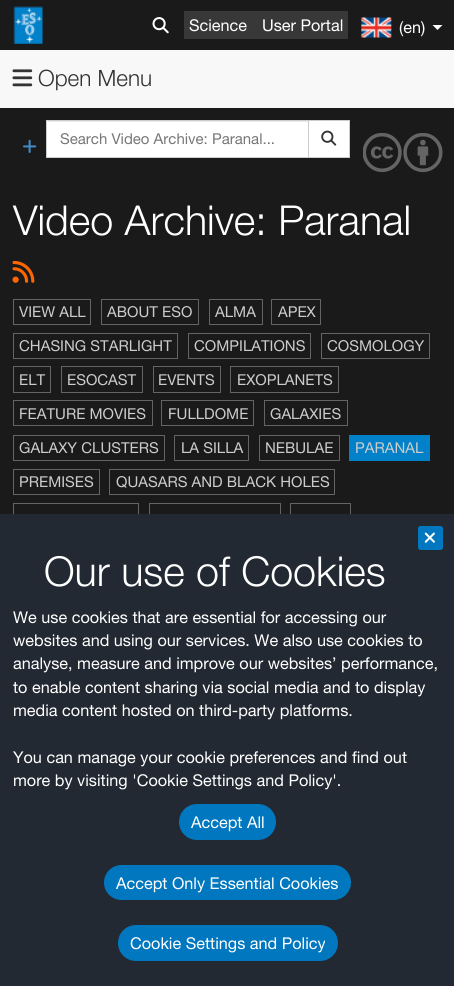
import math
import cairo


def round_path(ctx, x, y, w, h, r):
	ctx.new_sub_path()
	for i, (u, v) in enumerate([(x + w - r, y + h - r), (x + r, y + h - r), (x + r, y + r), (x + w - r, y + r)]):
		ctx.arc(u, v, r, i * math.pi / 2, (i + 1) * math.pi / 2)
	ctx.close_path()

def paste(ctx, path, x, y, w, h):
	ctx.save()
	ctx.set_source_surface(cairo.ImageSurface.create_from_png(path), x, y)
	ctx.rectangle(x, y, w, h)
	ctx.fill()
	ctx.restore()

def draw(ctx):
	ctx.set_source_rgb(0.969, 0.969, 0.969)
	ctx.paint()
	ctx.set_source_rgb(0.102, 0.102, 0.102)
	ctx.rectangle(0, 0, 454, 50)
	ctx.fill()
	paste(ctx, 'media/1.png', 13, 6, 30, 38)
	paste(ctx, 'media/2.png', 152, 17, 17, 17)
	ctx.set_source_rgb(0.22, 0.22, 0.22)
	ctx.rectangle(184, 11, 164, 28)
	ctx.fill()
	ctx.select_font_face('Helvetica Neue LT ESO')
	ctx.set_font_size(16.25)
	ctx.set_source_rgb(1, 1, 1)
	ctx.move_to(189, 31)
	ctx.show_text('Science')
	ctx.move_to(262, 31)
	ctx.show_text('User Portal')
	paste(ctx, 'media/3.png', 361, 17, 31, 21)
	ctx.move_to(399, 33)
	ctx.show_text('(en)')
	ctx.new_path()
	ctx.move_to(432.5, 25)
	ctx.line_to(442.5, 25)
	ctx.line_to(437.5, 30)
	ctx.close_path()
	ctx.fill()
	paste(ctx, 'media/4.png', 12, 69, 21, 18)
	ctx.select_font_face('Helvetica Neue LT ESO Light')
	ctx.set_font_size(22.5)
	ctx.set_source_rgb(0.2, 0.2, 0.2)
	ctx.move_to(38, 86)
	ctx.show_text('Open Menu')
	ctx.set_source_rgb(0.102, 0.102, 0.102)
	ctx.rectangle(0, 108, 454, 406)
	ctx.fill()
	paste(ctx, 'media/5.png', 23, 139, 14, 14)
	ctx.set_source_rgb(1, 1, 1)
	ctx.rectangle(47, 121, 261, 36)
	ctx.fill()
	ctx.set_source_rgb(0.925, 0.925, 0.925)
	ctx.rectangle(48, 121, 260, 1)
	ctx.fill()
	ctx.set_source_rgb(1, 1, 1)
	ctx.rectangle(308.5, 120.5, 41, 37)
	ctx.fill_preserve()
	ctx.set_source_rgb(0.8, 0.8, 0.8)
	ctx.set_line_width(1)
	ctx.stroke()
	ctx.rectangle(46.5, 120.5, 262, 37)
	ctx.stroke()
	ctx.select_font_face('Helvetica Neue LT ESO')
	ctx.set_font_size(15)
	ctx.set_source_rgb(0.467, 0.467, 0.467)
	ctx.move_to(60, 144)
	ctx.show_text('Search Video Archive: Paranal...')
	paste(ctx, 'media/6.png', 321, 130, 16, 16)
	paste(ctx, 'media/7.png', 363, 133, 80, 40)
	ctx.select_font_face('Helvetica Neue LT ESO Light')
	ctx.set_font_size(41.25)
	ctx.set_source_rgb(1, 1, 1)
	ctx.move_to(13, 235)
	ctx.show_text('Video Archive: Paranal')
	paste(ctx, 'media/8.png', 12, 260, 23, 23)
	ctx.rectangle(13.5, 299.5, 77, 25)
	ctx.set_source_rgb(0.392, 0.392, 0.392)
	ctx.stroke()
	ctx.select_font_face('Helvetica Neue LT ESO')
	ctx.set_font_size(15)
	ctx.set_source_rgb(0.8, 0.8, 0.8)
	ctx.move_to(19, 317)
	ctx.show_text('VIEW ALL')
	ctx.rectangle(101.5, 299.5, 97, 25)
	ctx.set_source_rgb(0.392, 0.392, 0.392)
	ctx.stroke()
	ctx.set_source_rgb(0.8, 0.8, 0.8)
	ctx.move_to(107, 317)
	ctx.show_text('ABOUT ESO')
	ctx.rectangle(209.5, 299.5, 53, 25)
	ctx.set_source_rgb(0.392, 0.392, 0.392)
	ctx.stroke()
	ctx.set_source_rgb(0.8, 0.8, 0.8)
	ctx.move_to(215, 317)
	ctx.show_text('ALMA')
	ctx.rectangle(271.5, 299.5, 49, 25)
	ctx.set_source_rgb(0.392, 0.392, 0.392)
	ctx.stroke()
	ctx.set_source_rgb(0.8, 0.8, 0.8)
	ctx.move_to(278, 317)
	ctx.show_text('APEX')
	ctx.rectangle(13.5, 333.5, 164, 25)
	ctx.set_source_rgb(0.392, 0.392, 0.392)
	ctx.stroke()
	ctx.set_source_rgb(0.8, 0.8, 0.8)
	ctx.move_to(19, 351)
	ctx.show_text('CHASING STARLIGHT')
	ctx.rectangle(188.5, 333.5, 122, 25)
	ctx.set_source_rgb(0.392, 0.392, 0.392)
	ctx.stroke()
	ctx.set_source_rgb(0.8, 0.8, 0.8)
	ctx.move_to(194, 351)
	ctx.show_text('COMPILATIONS')
	ctx.rectangle(321.5, 333.5, 108, 25)
	ctx.set_source_rgb(0.392, 0.392, 0.392)
	ctx.stroke()
	ctx.set_source_rgb(0.8, 0.8, 0.8)
	ctx.move_to(327, 351)
	ctx.show_text('COSMOLOGY')
	ctx.rectangle(13.5, 366.5, 37, 26)
	ctx.set_source_rgb(0.392, 0.392, 0.392)
	ctx.stroke()
	ctx.set_source_rgb(0.8, 0.8, 0.8)
	ctx.move_to(19, 385)
	ctx.show_text('ELT')
	ctx.rectangle(61.5, 366.5, 81, 26)
	ctx.set_source_rgb(0.392, 0.392, 0.392)
	ctx.stroke()
	ctx.set_source_rgb(0.8, 0.8, 0.8)
	ctx.move_to(67, 385)
	ctx.show_text('ESOCAST')
	ctx.rectangle(153.5, 366.5, 67, 26)
	ctx.set_source_rgb(0.392, 0.392, 0.392)
	ctx.stroke()
	ctx.set_source_rgb(0.8, 0.8, 0.8)
	ctx.move_to(158, 385)
	ctx.show_text('EVENTS')
	ctx.rectangle(230.5, 366.5, 108, 26)
	ctx.set_source_rgb(0.392, 0.392, 0.392)
	ctx.stroke()
	ctx.set_source_rgb(0.8, 0.8, 0.8)
	ctx.move_to(237, 385)
	ctx.show_text('EXOPLANETS')
	ctx.rectangle(13.5, 400.5, 139, 25)
	ctx.set_source_rgb(0.392, 0.392, 0.392)
	ctx.stroke()
	ctx.set_source_rgb(0.8, 0.8, 0.8)
	ctx.move_to(19, 419)
	ctx.show_text('FEATURE MOVIES')
	ctx.rectangle(161.5, 400.5, 92, 25)
	ctx.set_source_rgb(0.392, 0.392, 0.392)
	ctx.stroke()
	ctx.set_source_rgb(0.8, 0.8, 0.8)
	ctx.move_to(168, 419)
	ctx.show_text('FULLDOME')
	ctx.rectangle(264.5, 400.5, 83, 25)
	ctx.set_source_rgb(0.392, 0.392, 0.392)
	ctx.stroke()
	ctx.set_source_rgb(0.8, 0.8, 0.8)
	ctx.move_to(270, 419)
	ctx.show_text('GALAXIES')
	ctx.rectangle(13.5, 435.5, 151, 25)
	ctx.set_source_rgb(0.392, 0.392, 0.392)
	ctx.stroke()
	ctx.set_source_rgb(0.8, 0.8, 0.8)
	ctx.move_to(19, 453)
	ctx.show_text('GALAXY CLUSTERS')
	ctx.rectangle(174.5, 435.5, 74, 25)
	ctx.set_source_rgb(0.392, 0.392, 0.392)
	ctx.stroke()
	ctx.set_source_rgb(0.8, 0.8, 0.8)
	ctx.move_to(181, 453)
	ctx.show_text('LA SILLA')
	ctx.rectangle(259.5, 435.5, 80, 25)
	ctx.set_source_rgb(0.392, 0.392, 0.392)
	ctx.stroke()
	ctx.set_source_rgb(0.8, 0.8, 0.8)
	ctx.move_to(265, 453)
	ctx.show_text('NEBULAE')
	ctx.set_source_rgb(0, 0.506, 0.788)
	ctx.rectangle(349, 435, 81, 26)
	ctx.fill()
	ctx.set_source_rgb(0.8, 0.8, 0.8)
	ctx.move_to(355, 453)
	ctx.show_text('PARANAL')
	ctx.rectangle(13.5, 469.5, 86, 25)
	ctx.set_source_rgb(0.392, 0.392, 0.392)
	ctx.stroke()
	ctx.set_source_rgb(0.8, 0.8, 0.8)
	ctx.move_to(19, 487)
	ctx.show_text('PREMISES')
	ctx.rectangle(109.5, 469.5, 225, 25)
	ctx.set_source_rgb(0.392, 0.392, 0.392)
	ctx.stroke()
	ctx.set_source_rgb(0.8, 0.8, 0.8)
	ctx.move_to(116, 487)
	ctx.show_text('QUASARS AND BLACK HOLES')
	ctx.rectangle(13.5, 503.5, 125, 25)
	ctx.set_source_rgb(0.392, 0.392, 0.392)
	ctx.stroke()
	ctx.rectangle(149.5, 503.5, 131, 25)
	ctx.stroke()
	ctx.rectangle(290.5, 503.5, 60, 25)
	ctx.stroke()
	ctx.set_source_rgb(0.137, 0.161, 0.196)
	ctx.rectangle(0, 514, 454, 472)
	ctx.fill()
	ctx.set_source_rgb(0, 0.467, 0.745)
	round_path(ctx, 418, 526, 25, 24, 2.5)
	ctx.fill()
	paste(ctx, 'media/9.png', 424, 532, 11, 11)
	ctx.select_font_face('Helvetica Neue LT ESO Light')
	ctx.set_font_size(41.25)
	ctx.set_source_rgb(1, 1, 1)
	ctx.move_to(44, 586)
	ctx.show_text('Our use of Cookies')
	ctx.select_font_face('Helvetica Neue LT ESO')
	ctx.set_font_size(16.25)
	for x, y, s in [
		(13, 623, 'We use cookies that are essential for accessing our'),
		(13, 646, 'websites and using our services. We also use cookies to'),
		(13, 669, 'analyse, measure and improve our websites’ performance,'),
		(13, 693, 'to enable content sharing via social media and to display'),
		(13, 716, 'media content hosted on third-party platforms.'),
		(13, 763, 'You can manage your cookie preferences and find out'),
		(13, 786, 'more by visiting \'Cookie Settings and Policy\'.'),
	]:
		ctx.move_to(x, y)
		ctx.show_text(s)
	ctx.set_source_rgb(0, 0.467, 0.745)
	round_path(ctx, 179, 804, 97, 36, 18)
	ctx.fill()
	ctx.set_source_rgb(1, 1, 1)
	ctx.move_to(191, 828)
	ctx.show_text('Accept All')
	ctx.set_source_rgb(0, 0.467, 0.745)
	round_path(ctx, 104, 865, 247, 35, 17.5)
	ctx.fill()
	ctx.set_source_rgb(1, 1, 1)
	ctx.move_to(116, 889)
	ctx.show_text('Accept Only Essential Cookies')
	ctx.set_source_rgb(0, 0.467, 0.745)
	round_path(ctx, 118, 925, 220, 36, 18)
	ctx.fill()
	ctx.set_source_rgb(1, 1, 1)
	ctx.move_to(130, 949)
	ctx.show_text('Cookie Settings and Policy')


surface = cairo.ImageSurface(cairo.FORMAT_RGB24, 454, 986)
ctx = cairo.Context(surface)
options = cairo.FontOptions()
options.set_hint_metrics(cairo.HINT_METRICS_OFF)
options.set_hint_style(cairo.HINT_STYLE_NONE)
ctx.set_font_options(options)
ctx.set_miter_limit(4)
draw(ctx)
surface.write_to_png('image.png')
